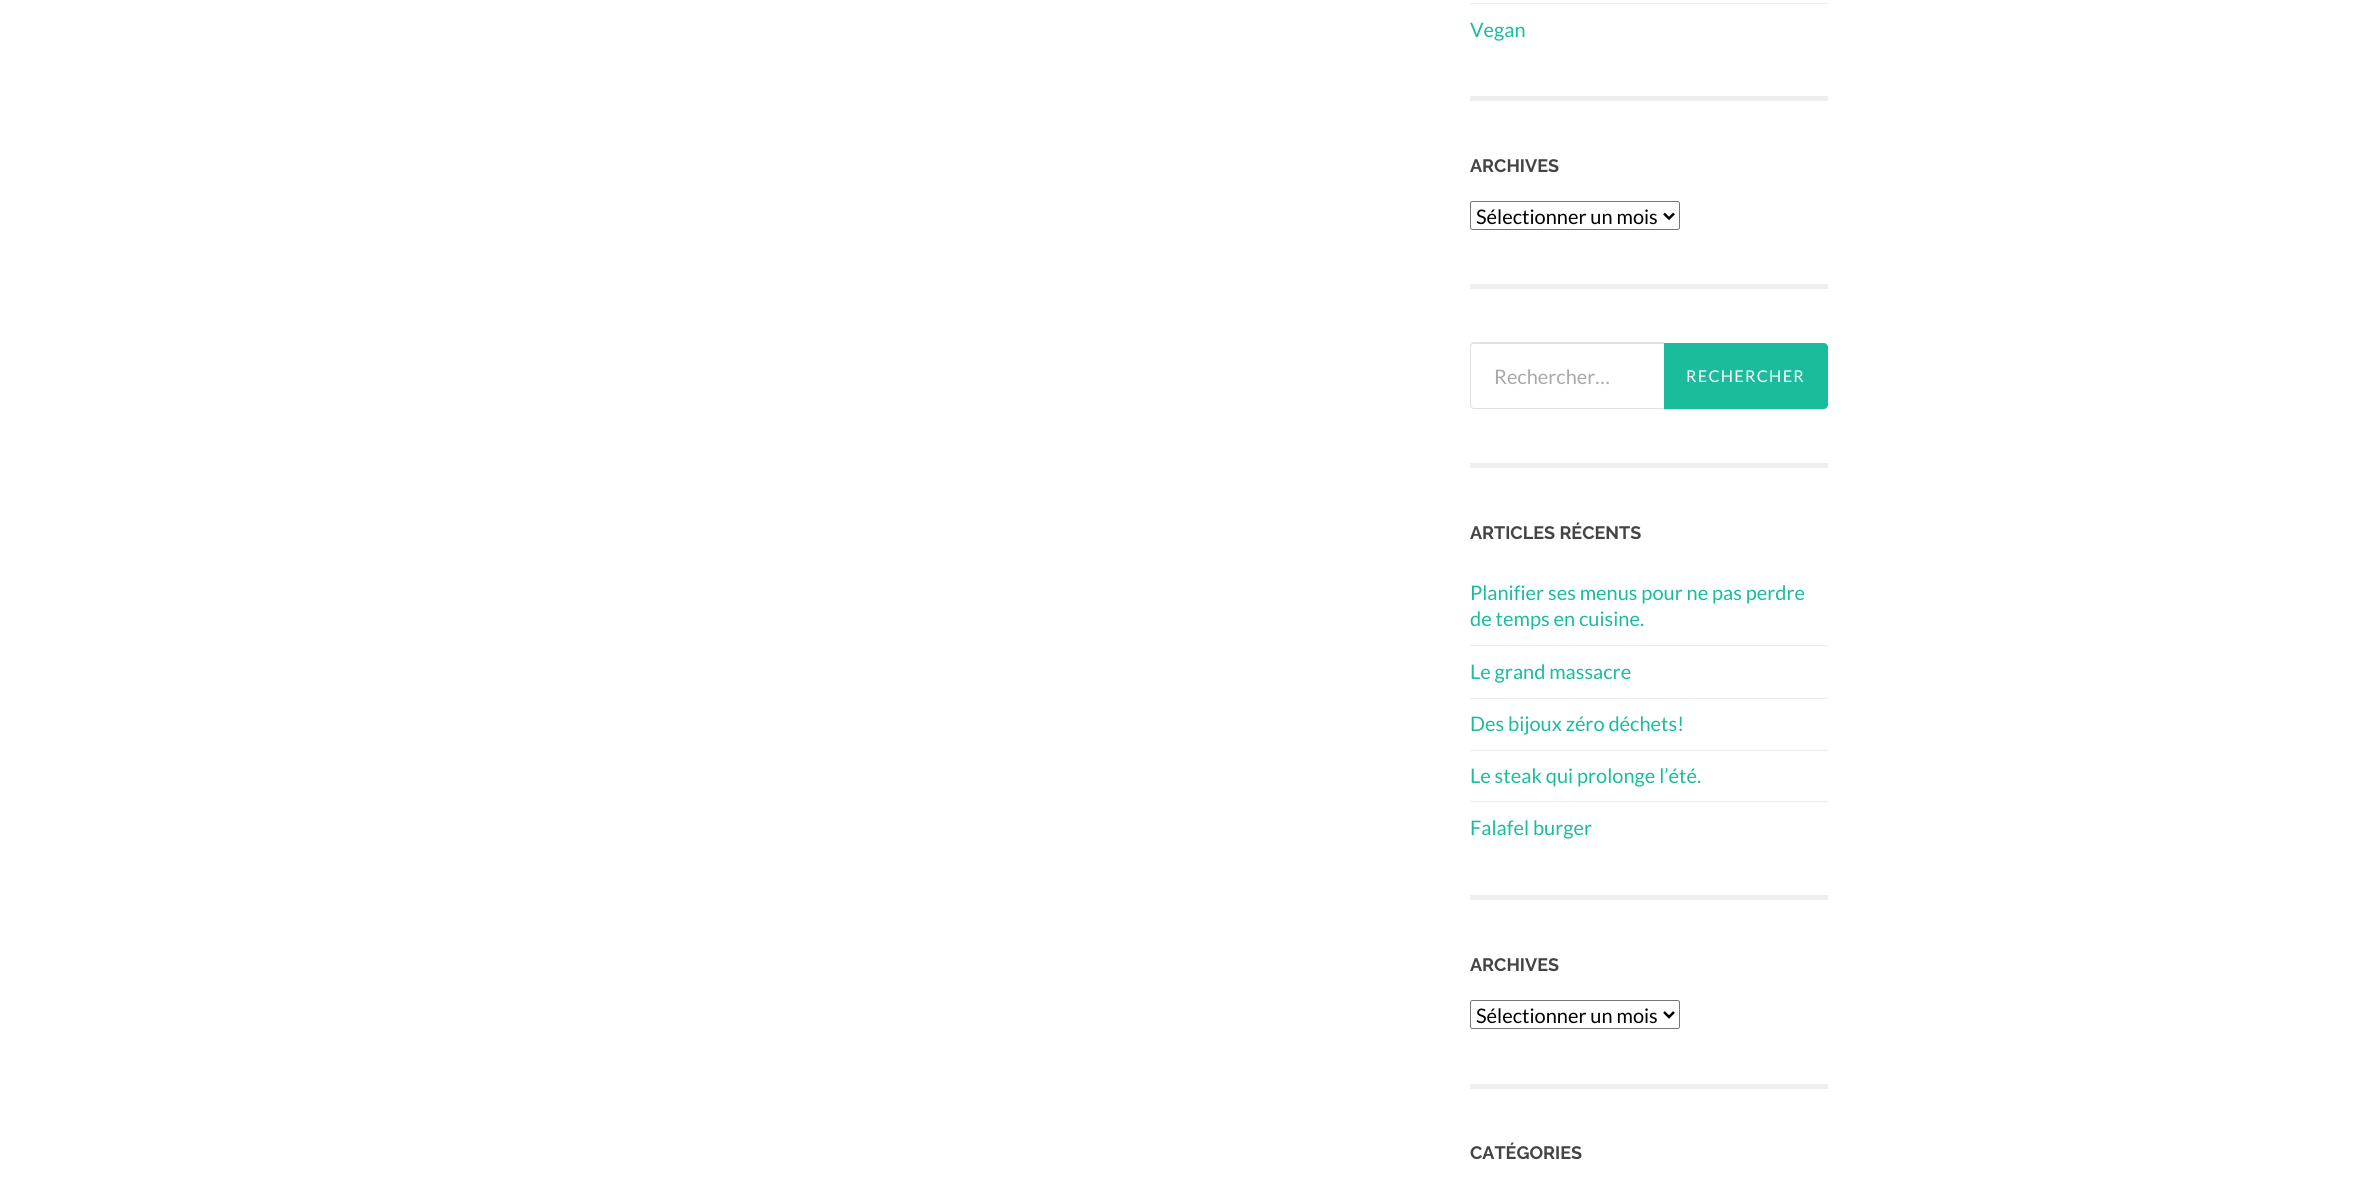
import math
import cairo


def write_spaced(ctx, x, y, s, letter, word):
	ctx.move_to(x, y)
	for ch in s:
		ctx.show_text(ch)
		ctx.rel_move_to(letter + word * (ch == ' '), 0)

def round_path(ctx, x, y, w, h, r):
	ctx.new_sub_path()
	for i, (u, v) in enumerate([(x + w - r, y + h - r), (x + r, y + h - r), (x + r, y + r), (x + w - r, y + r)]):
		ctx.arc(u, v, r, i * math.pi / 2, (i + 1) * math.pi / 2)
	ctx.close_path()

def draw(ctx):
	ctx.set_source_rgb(1, 1, 1)
	ctx.paint()
	ctx.set_source_rgb(0.933, 0.933, 0.933)
	ctx.rectangle(1470, 96, 358, 5)
	ctx.fill()
	ctx.rectangle(1470, 3, 358, 1)
	ctx.fill()
	ctx.select_font_face('Lato')
	ctx.set_font_size(20)
	ctx.set_source_rgb(0.102, 0.737, 0.612)
	ctx.move_to(1470, 37)
	ctx.show_text('Vegan')
	ctx.set_source_rgb(0.933, 0.933, 0.933)
	ctx.rectangle(1470, 284, 358, 5)
	ctx.fill()
	ctx.select_font_face('Raleway Thin')
	ctx.set_font_size(18)
	ctx.set_source_rgb(0.267, 0.267, 0.267)
	ctx.move_to(1470, 172)
	ctx.show_text('ARCHIVES')
	round_path(ctx, 1470.5, 201.5, 209, 28, 2)
	ctx.set_source_rgb(0.463, 0.463, 0.463)
	ctx.set_line_width(1)
	ctx.stroke()
	ctx.new_path()
	ctx.move_to(1664, 213.5)
	ctx.line_to(1669, 218.5)
	ctx.line_to(1674, 213.5)
	ctx.set_source_rgb(0, 0, 0)
	ctx.set_line_width(2.5)
	ctx.stroke()
	ctx.select_font_face('Lato')
	ctx.set_font_size(20)
	ctx.move_to(1476, 224)
	ctx.show_text('Sélectionner un mois')
	ctx.set_source_rgb(0.933, 0.933, 0.933)
	ctx.rectangle(1470, 463, 358, 5)
	ctx.fill()
	ctx.set_source_rgb(0.882, 0.882, 0.89)
	ctx.set_fill_rule(cairo.FILL_RULE_EVEN_ODD)
	ctx.new_path()
	ctx.move_to(1474, 342)
	ctx.line_to(1664, 342)
	ctx.line_to(1664, 409)
	ctx.line_to(1474, 409)
	ctx.curve_to(1472, 409, 1470, 407, 1470, 405)
	ctx.line_to(1470, 346)
	ctx.curve_to(1470, 344, 1472, 342, 1474, 342)
	ctx.close_path()
	ctx.move_to(1474, 344)
	ctx.line_to(1664, 344)
	ctx.line_to(1664, 408)
	ctx.line_to(1474, 408)
	ctx.curve_to(1472, 408, 1471, 406, 1471, 405)
	ctx.line_to(1471, 346)
	ctx.curve_to(1471, 345, 1472, 344, 1474, 344)
	ctx.close_path()
	ctx.fill()
	ctx.set_source_rgb(0.663, 0.663, 0.663)
	ctx.move_to(1494, 384)
	ctx.show_text('Rechercher…')
	ctx.set_source_rgb(0.102, 0.737, 0.612)
	ctx.new_path()
	ctx.move_to(1664, 343)
	ctx.line_to(1824, 343)
	ctx.curve_to(1826, 343, 1828, 345, 1828, 347)
	ctx.line_to(1828, 405)
	ctx.curve_to(1828, 407, 1826, 409, 1824, 409)
	ctx.line_to(1664, 409)
	ctx.close_path()
	ctx.fill()
	ctx.set_font_size(16.25)
	ctx.set_source_rgb(1, 1, 1)
	write_spaced(ctx, 1686, 382, 'RECHERCHER', 1.25, 0)
	ctx.set_source_rgb(0.933, 0.933, 0.933)
	ctx.rectangle(1470, 895, 358, 5)
	ctx.fill()
	ctx.select_font_face('Raleway Thin')
	ctx.set_font_size(18)
	ctx.set_source_rgb(0.267, 0.267, 0.267)
	ctx.move_to(1470, 539)
	ctx.show_text('ARTICLES RÉCENTS')
	ctx.select_font_face('Lato')
	ctx.set_font_size(20)
	ctx.set_source_rgb(0.102, 0.737, 0.612)
	ctx.move_to(1470, 600)
	ctx.show_text('Planifier ses menus pour ne pas perdre')
	ctx.move_to(1470, 626)
	ctx.show_text('de temps en cuisine.')
	ctx.set_source_rgb(0.933, 0.933, 0.933)
	ctx.rectangle(1470, 645, 358, 1)
	ctx.fill()
	ctx.set_source_rgb(0.102, 0.737, 0.612)
	ctx.move_to(1470, 679)
	ctx.show_text('Le grand massacre')
	ctx.set_source_rgb(0.933, 0.933, 0.933)
	ctx.rectangle(1470, 698, 358, 1)
	ctx.fill()
	ctx.set_source_rgb(0.102, 0.737, 0.612)
	ctx.move_to(1470, 731)
	ctx.show_text('Des bijoux zéro déchets!')
	ctx.set_source_rgb(0.933, 0.933, 0.933)
	ctx.rectangle(1470, 750, 358, 1)
	ctx.fill()
	ctx.set_source_rgb(0.102, 0.737, 0.612)
	ctx.move_to(1470, 783)
	ctx.show_text('Le steak qui prolonge l’été.')
	ctx.set_source_rgb(0.933, 0.933, 0.933)
	ctx.rectangle(1470, 801, 358, 1)
	ctx.fill()
	ctx.set_source_rgb(0.102, 0.737, 0.612)
	ctx.move_to(1470, 835)
	ctx.show_text('Falafel burger')
	ctx.set_source_rgb(0.933, 0.933, 0.933)
	ctx.rectangle(1470, 1084, 358, 5)
	ctx.fill()
	ctx.select_font_face('Raleway Thin')
	ctx.set_font_size(18)
	ctx.set_source_rgb(0.267, 0.267, 0.267)
	ctx.move_to(1470, 971)
	ctx.show_text('ARCHIVES')
	round_path(ctx, 1470.5, 1000.5, 209, 28, 2)
	ctx.set_source_rgb(0.463, 0.463, 0.463)
	ctx.set_line_width(1)
	ctx.stroke()
	ctx.new_path()
	ctx.move_to(1664, 1012)
	ctx.line_to(1669, 1017)
	ctx.line_to(1674, 1012)
	ctx.set_source_rgb(0, 0, 0)
	ctx.set_line_width(2.5)
	ctx.stroke()
	ctx.select_font_face('Lato')
	ctx.set_font_size(20)
	ctx.move_to(1476, 1023)
	ctx.show_text('Sélectionner un mois')
	ctx.select_font_face('Raleway Thin')
	ctx.set_font_size(18)
	ctx.set_source_rgb(0.267, 0.267, 0.267)
	ctx.move_to(1470, 1159)
	ctx.show_text('CATÉGORIES')


surface = cairo.ImageSurface(cairo.FORMAT_RGB24, 2355, 1193)
ctx = cairo.Context(surface)
options = cairo.FontOptions()
options.set_hint_metrics(cairo.HINT_METRICS_OFF)
options.set_hint_style(cairo.HINT_STYLE_NONE)
ctx.set_font_options(options)
ctx.set_miter_limit(4)
draw(ctx)
surface.write_to_png('image.png')
